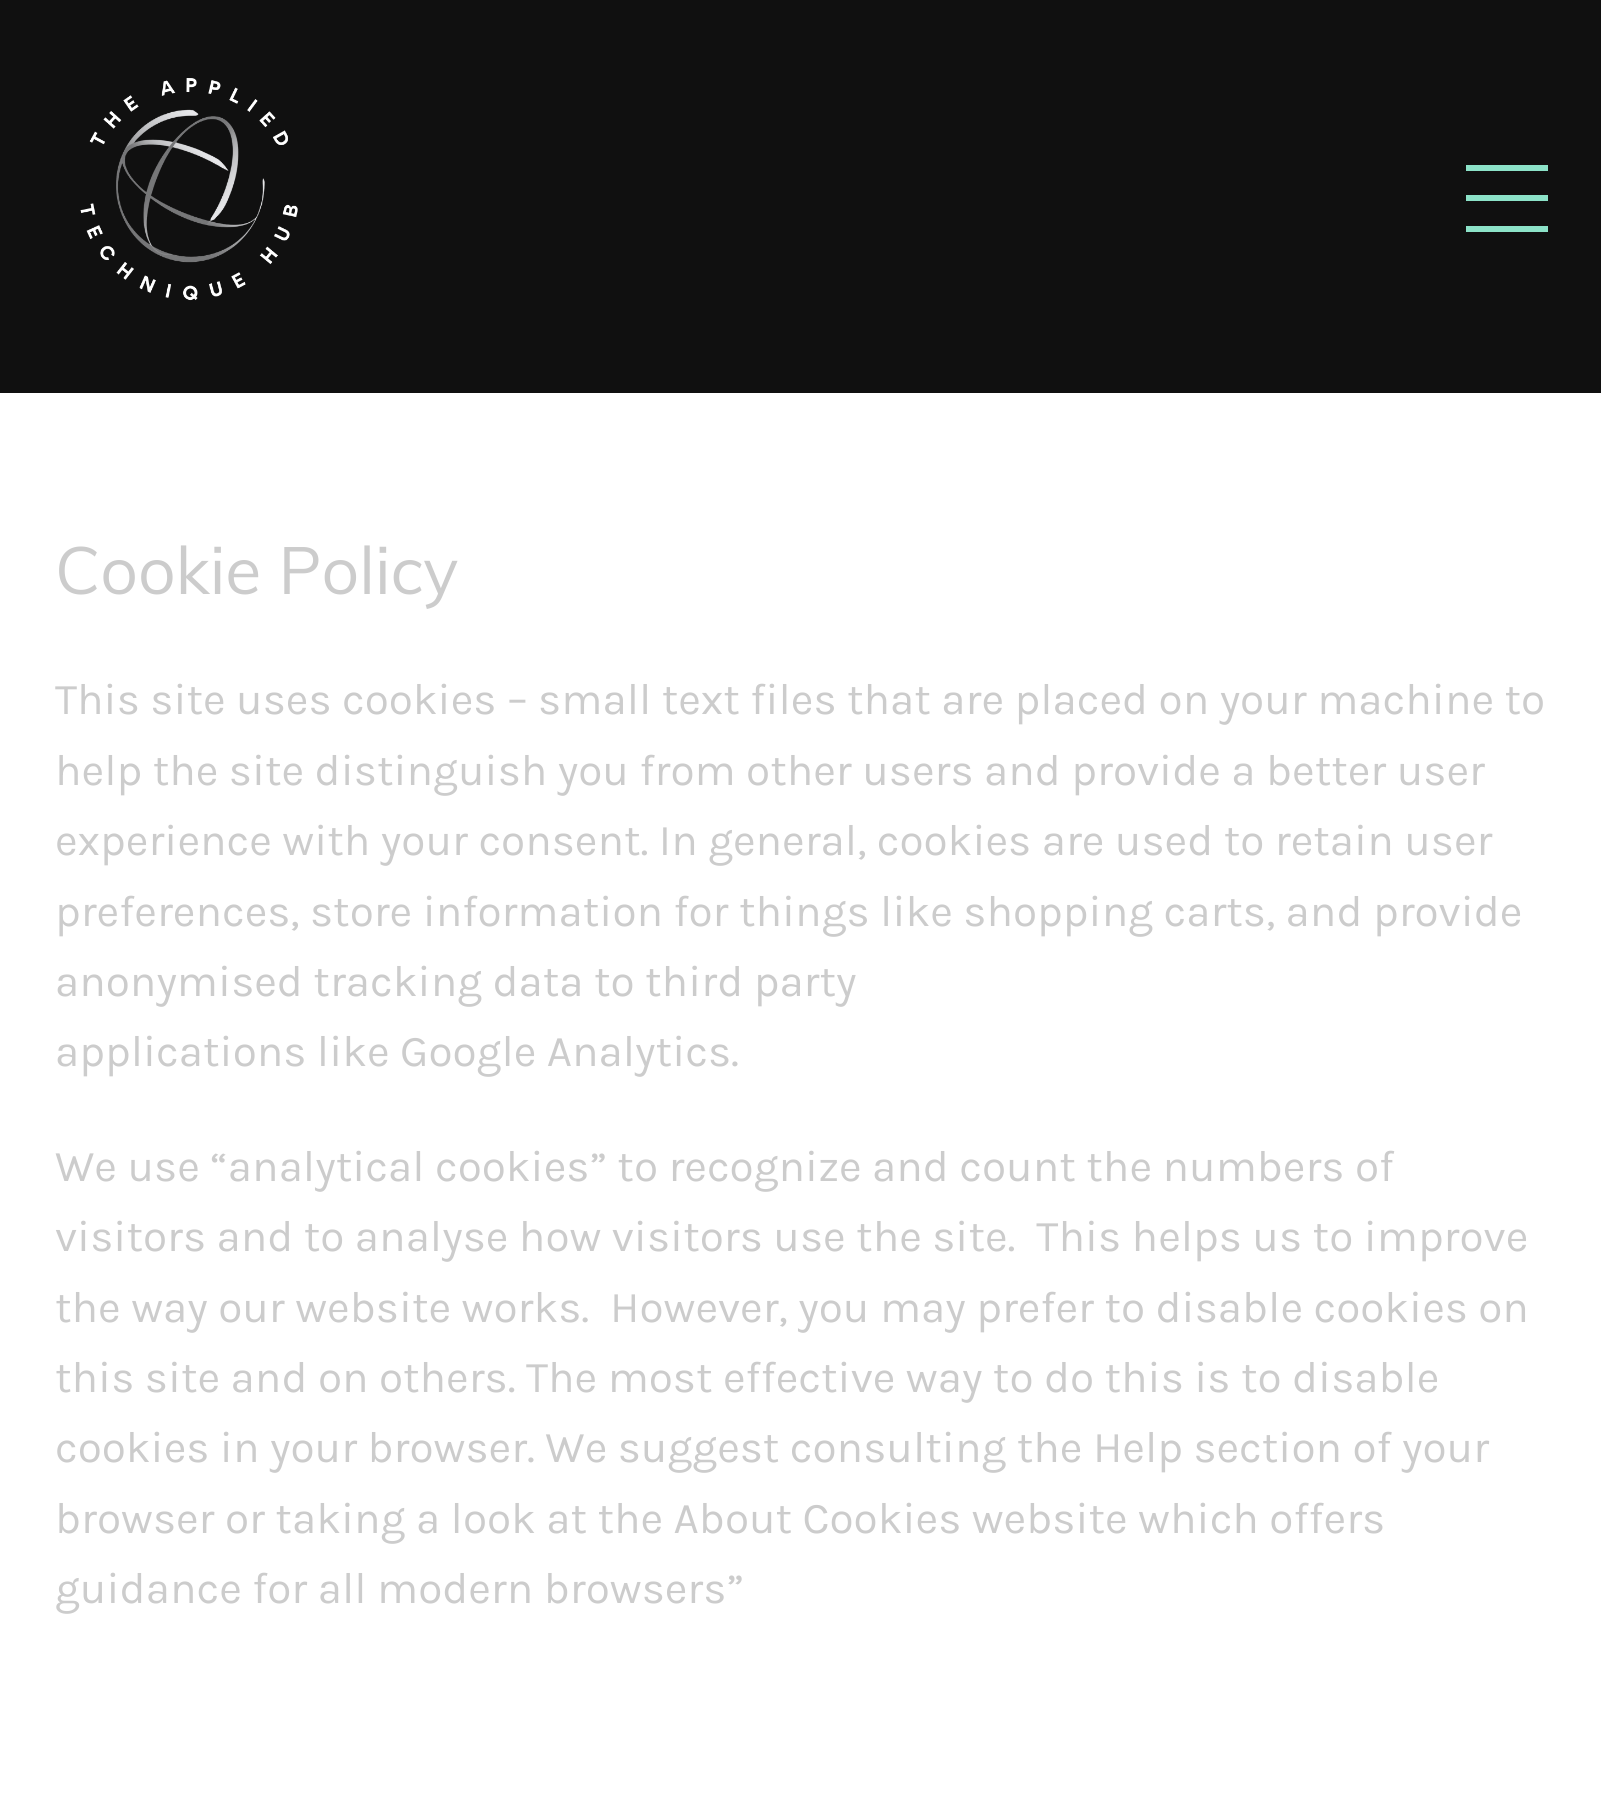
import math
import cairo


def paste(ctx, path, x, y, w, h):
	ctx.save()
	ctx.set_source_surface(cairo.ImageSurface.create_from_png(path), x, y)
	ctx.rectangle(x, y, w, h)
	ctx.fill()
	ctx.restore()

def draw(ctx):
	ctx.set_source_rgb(1, 1, 1)
	ctx.paint()
	ctx.set_source_rgb(0.063, 0.063, 0.063)
	ctx.rectangle(0, 0, 1601, 393)
	ctx.fill()
	paste(ctx, 'media/1.png', 80, 78, 218, 223)
	ctx.set_source_rgb(0.549, 0.886, 0.784)
	ctx.rectangle(1466, 165, 82, 6)
	ctx.rectangle(1466, 195, 82, 6)
	ctx.rectangle(1466, 226, 82, 6)
	ctx.fill()
	ctx.select_font_face('Muli')
	ctx.set_font_size(66)
	ctx.set_source_rgb(0.8, 0.8, 0.8)
	ctx.move_to(55, 594)
	ctx.show_text('Cookie Policy')
	ctx.select_font_face('Karla')
	ctx.set_font_size(44)
	for x, y, s in [
		(55, 714, 'This site uses cookies – small text files that are placed on your machine to'),
		(55, 785, 'help the site distinguish you from other users and provide a better user'),
		(55, 855, 'experience with your consent. In general, cookies are used to retain user'),
		(55, 926, 'preferences, store information for things like shopping carts, and provide'),
		(55, 996, 'anonymised tracking data to third party'),
		(55, 1066, 'applications like Google Analytics.'),
		(55, 1181, 'We use “analytical cookies” to recognize and count the numbers of'),
		(55, 1251, 'visitors and to analyse how visitors use the site.  This helps us to improve'),
		(55, 1322, 'the way our website works.  However, you may prefer to disable cookies on'),
		(55, 1392, 'this site and on others. The most effective way to do this is to disable'),
		(55, 1462, 'cookies in your browser. We suggest consulting the Help section of your'),
		(55, 1533, 'browser or taking a look at the About Cookies website which offers'),
		(55, 1603, 'guidance for all modern browsers”'),
	]:
		ctx.move_to(x, y)
		ctx.show_text(s)


surface = cairo.ImageSurface(cairo.FORMAT_RGB24, 1601, 1816)
ctx = cairo.Context(surface)
options = cairo.FontOptions()
options.set_hint_metrics(cairo.HINT_METRICS_OFF)
options.set_hint_style(cairo.HINT_STYLE_NONE)
ctx.set_font_options(options)
ctx.set_miter_limit(4)
draw(ctx)
surface.write_to_png('image.png')
